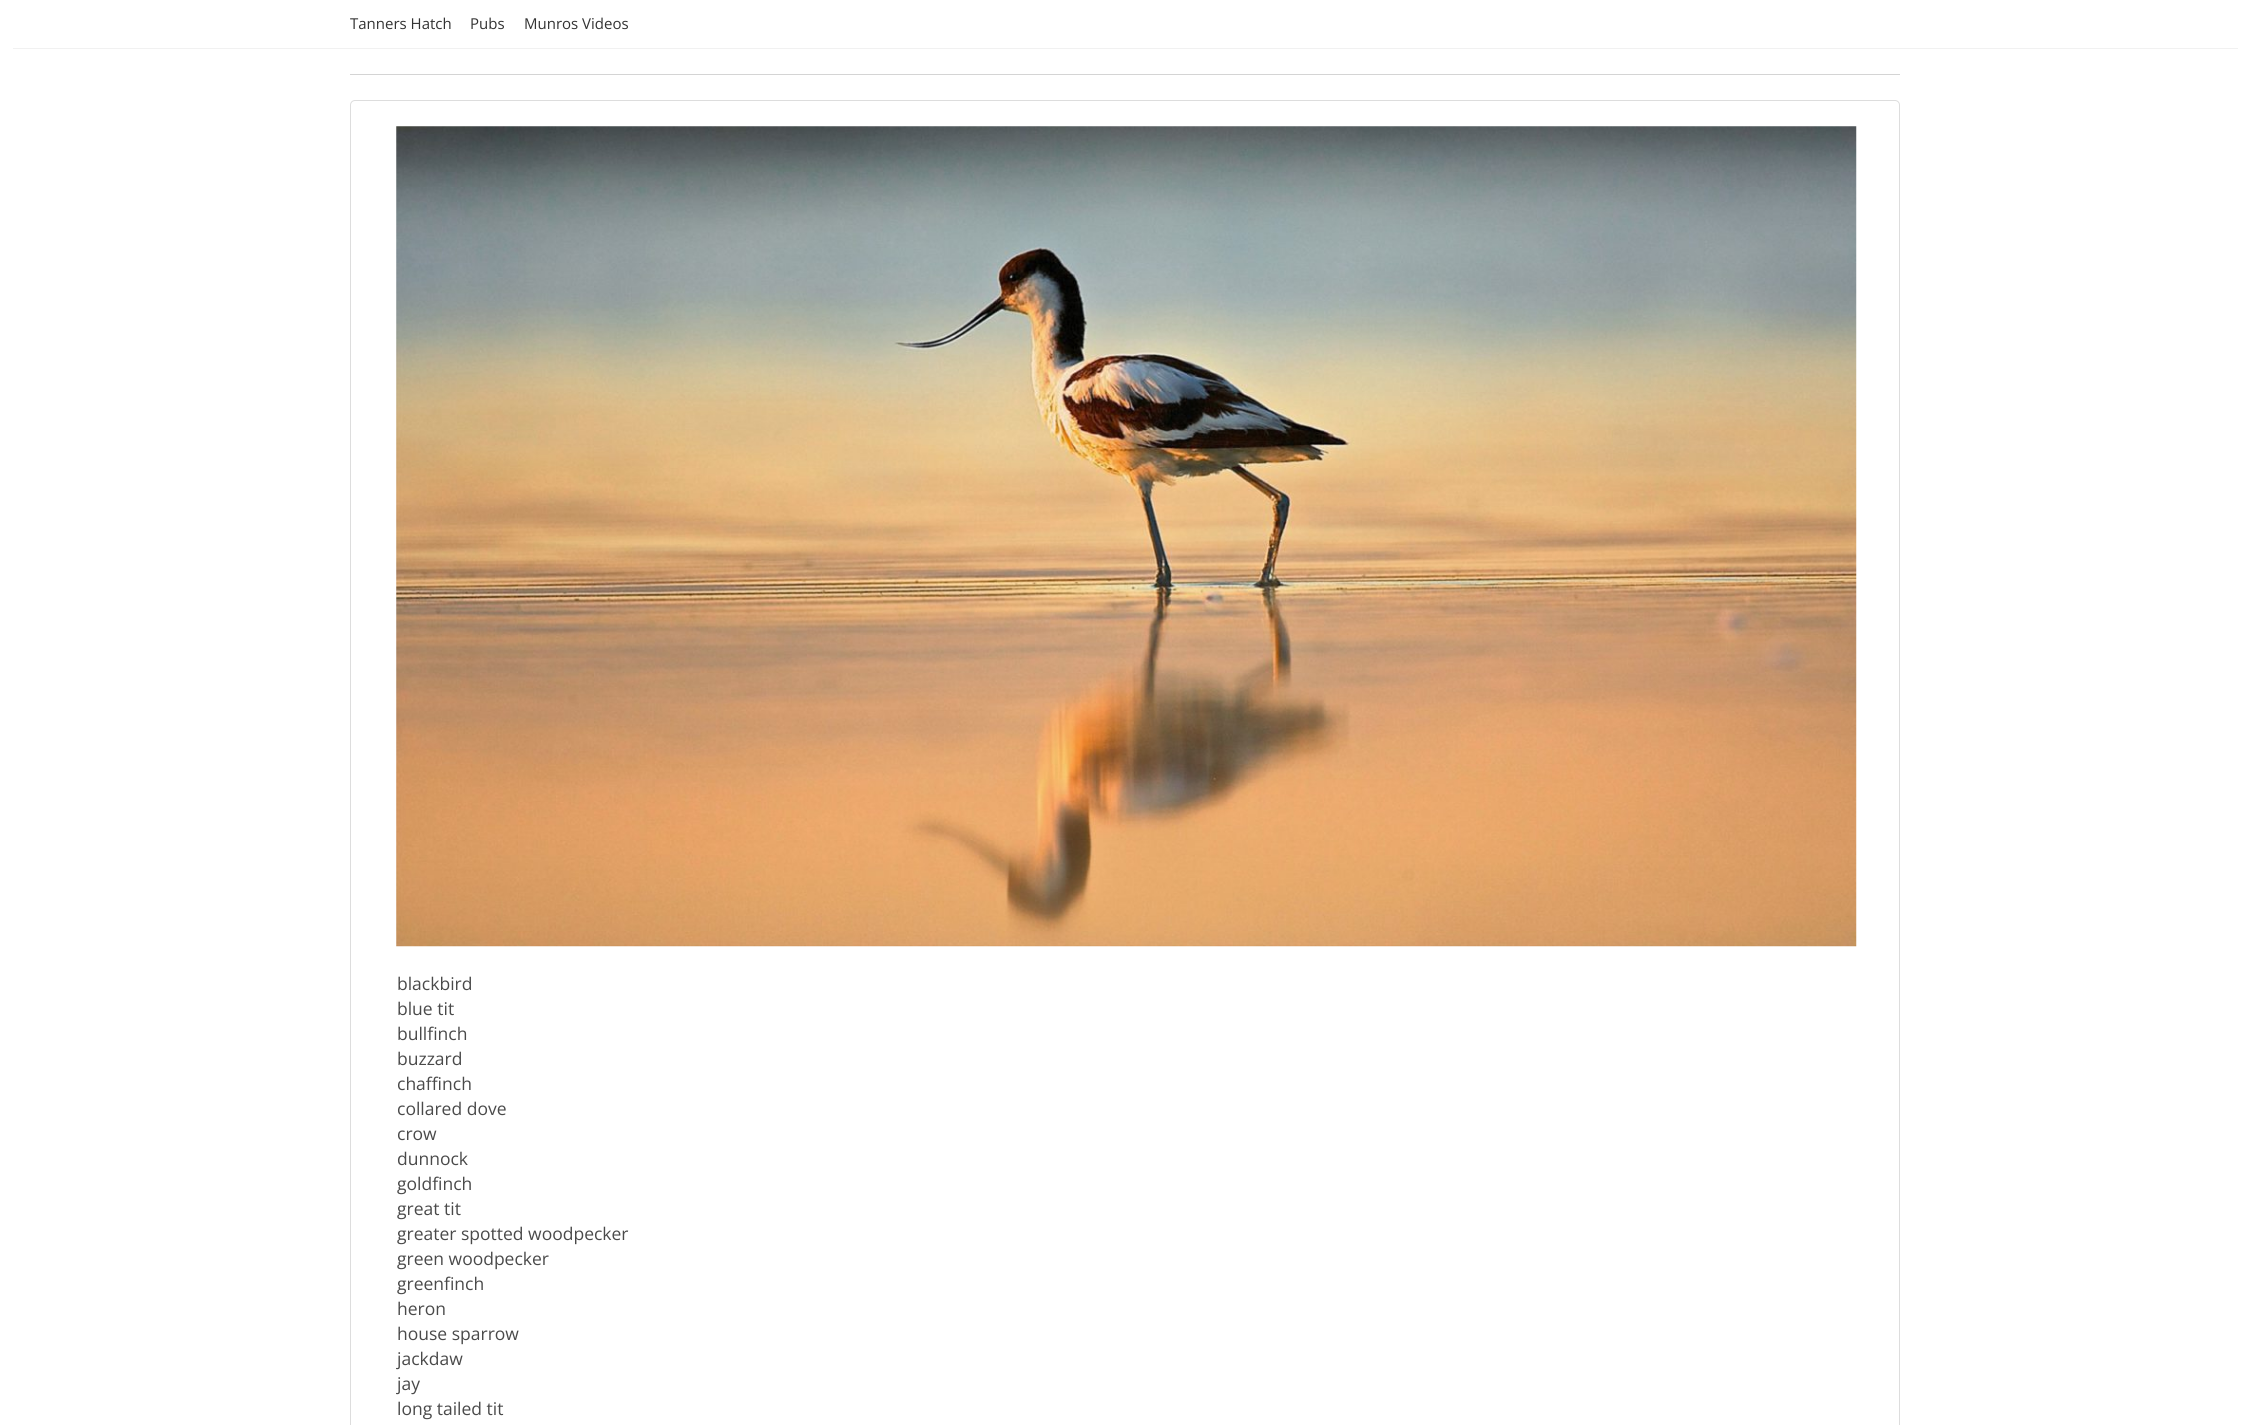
import math
import cairo


def round_path(ctx, x, y, w, h, r):
	ctx.new_sub_path()
	for i, (u, v) in enumerate([(x + w - r, y + h - r), (x + r, y + h - r), (x + r, y + r), (x + w - r, y + r)]):
		ctx.arc(u, v, r, i * math.pi / 2, (i + 1) * math.pi / 2)
	ctx.close_path()

def paste(ctx, path, x, y, w, h):
	ctx.save()
	ctx.set_source_surface(cairo.ImageSurface.create_from_png(path), x, y)
	ctx.rectangle(x, y, w, h)
	ctx.fill()
	ctx.restore()

def draw(ctx):
	ctx.set_source_rgb(1, 1, 1)
	ctx.paint()
	ctx.set_source_rgb(0.945, 0.945, 0.945)
	ctx.rectangle(13, 48, 2225, 1)
	ctx.fill()
	ctx.select_font_face('Open Sans')
	ctx.set_font_size(15)
	ctx.set_source_rgb(0.2, 0.2, 0.2)
	for x, y, s in [
		(350, 29, 'Tanners Hatch'),
		(470, 29, 'Pubs'),
		(524, 29, 'Munros Videos'),
	]:
		ctx.move_to(x, y)
		ctx.show_text(s)
	ctx.set_source_rgb(0.831, 0.831, 0.831)
	ctx.rectangle(350, 74, 1550, 1)
	ctx.fill()
	round_path(ctx, 350.5, 100.5, 1549, 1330, 4.5)
	ctx.set_source_rgb(0.867, 0.867, 0.867)
	ctx.set_line_width(1)
	ctx.stroke()
	paste(ctx, 'media/1.png', 396, 126, 1461, 821)
	ctx.set_font_size(17.5)
	ctx.set_source_rgb(0.29, 0.29, 0.29)
	for x, y, s in [
		(397, 990, 'blackbird'),
		(397, 1015, 'blue tit'),
		(397, 1040, 'bullfinch'),
		(397, 1065, 'buzzard'),
		(397, 1090, 'chaffinch'),
		(397, 1115, 'collared dove'),
		(397, 1140, 'crow'),
		(397, 1165, 'dunnock'),
		(397, 1190, 'goldfinch'),
		(397, 1215, 'great tit'),
		(397, 1240, 'greater spotted woodpecker'),
		(397, 1265, 'green woodpecker'),
		(397, 1290, 'greenfinch'),
		(397, 1315, 'heron'),
		(397, 1340, 'house sparrow'),
		(397, 1365, 'jackdaw'),
		(397, 1390, 'jay'),
		(397, 1415, 'long tailed tit'),
	]:
		ctx.move_to(x, y)
		ctx.show_text(s)


surface = cairo.ImageSurface(cairo.FORMAT_RGB24, 2249, 1425)
ctx = cairo.Context(surface)
options = cairo.FontOptions()
options.set_hint_metrics(cairo.HINT_METRICS_OFF)
options.set_hint_style(cairo.HINT_STYLE_NONE)
ctx.set_font_options(options)
ctx.set_miter_limit(4)
draw(ctx)
surface.write_to_png('image.png')
